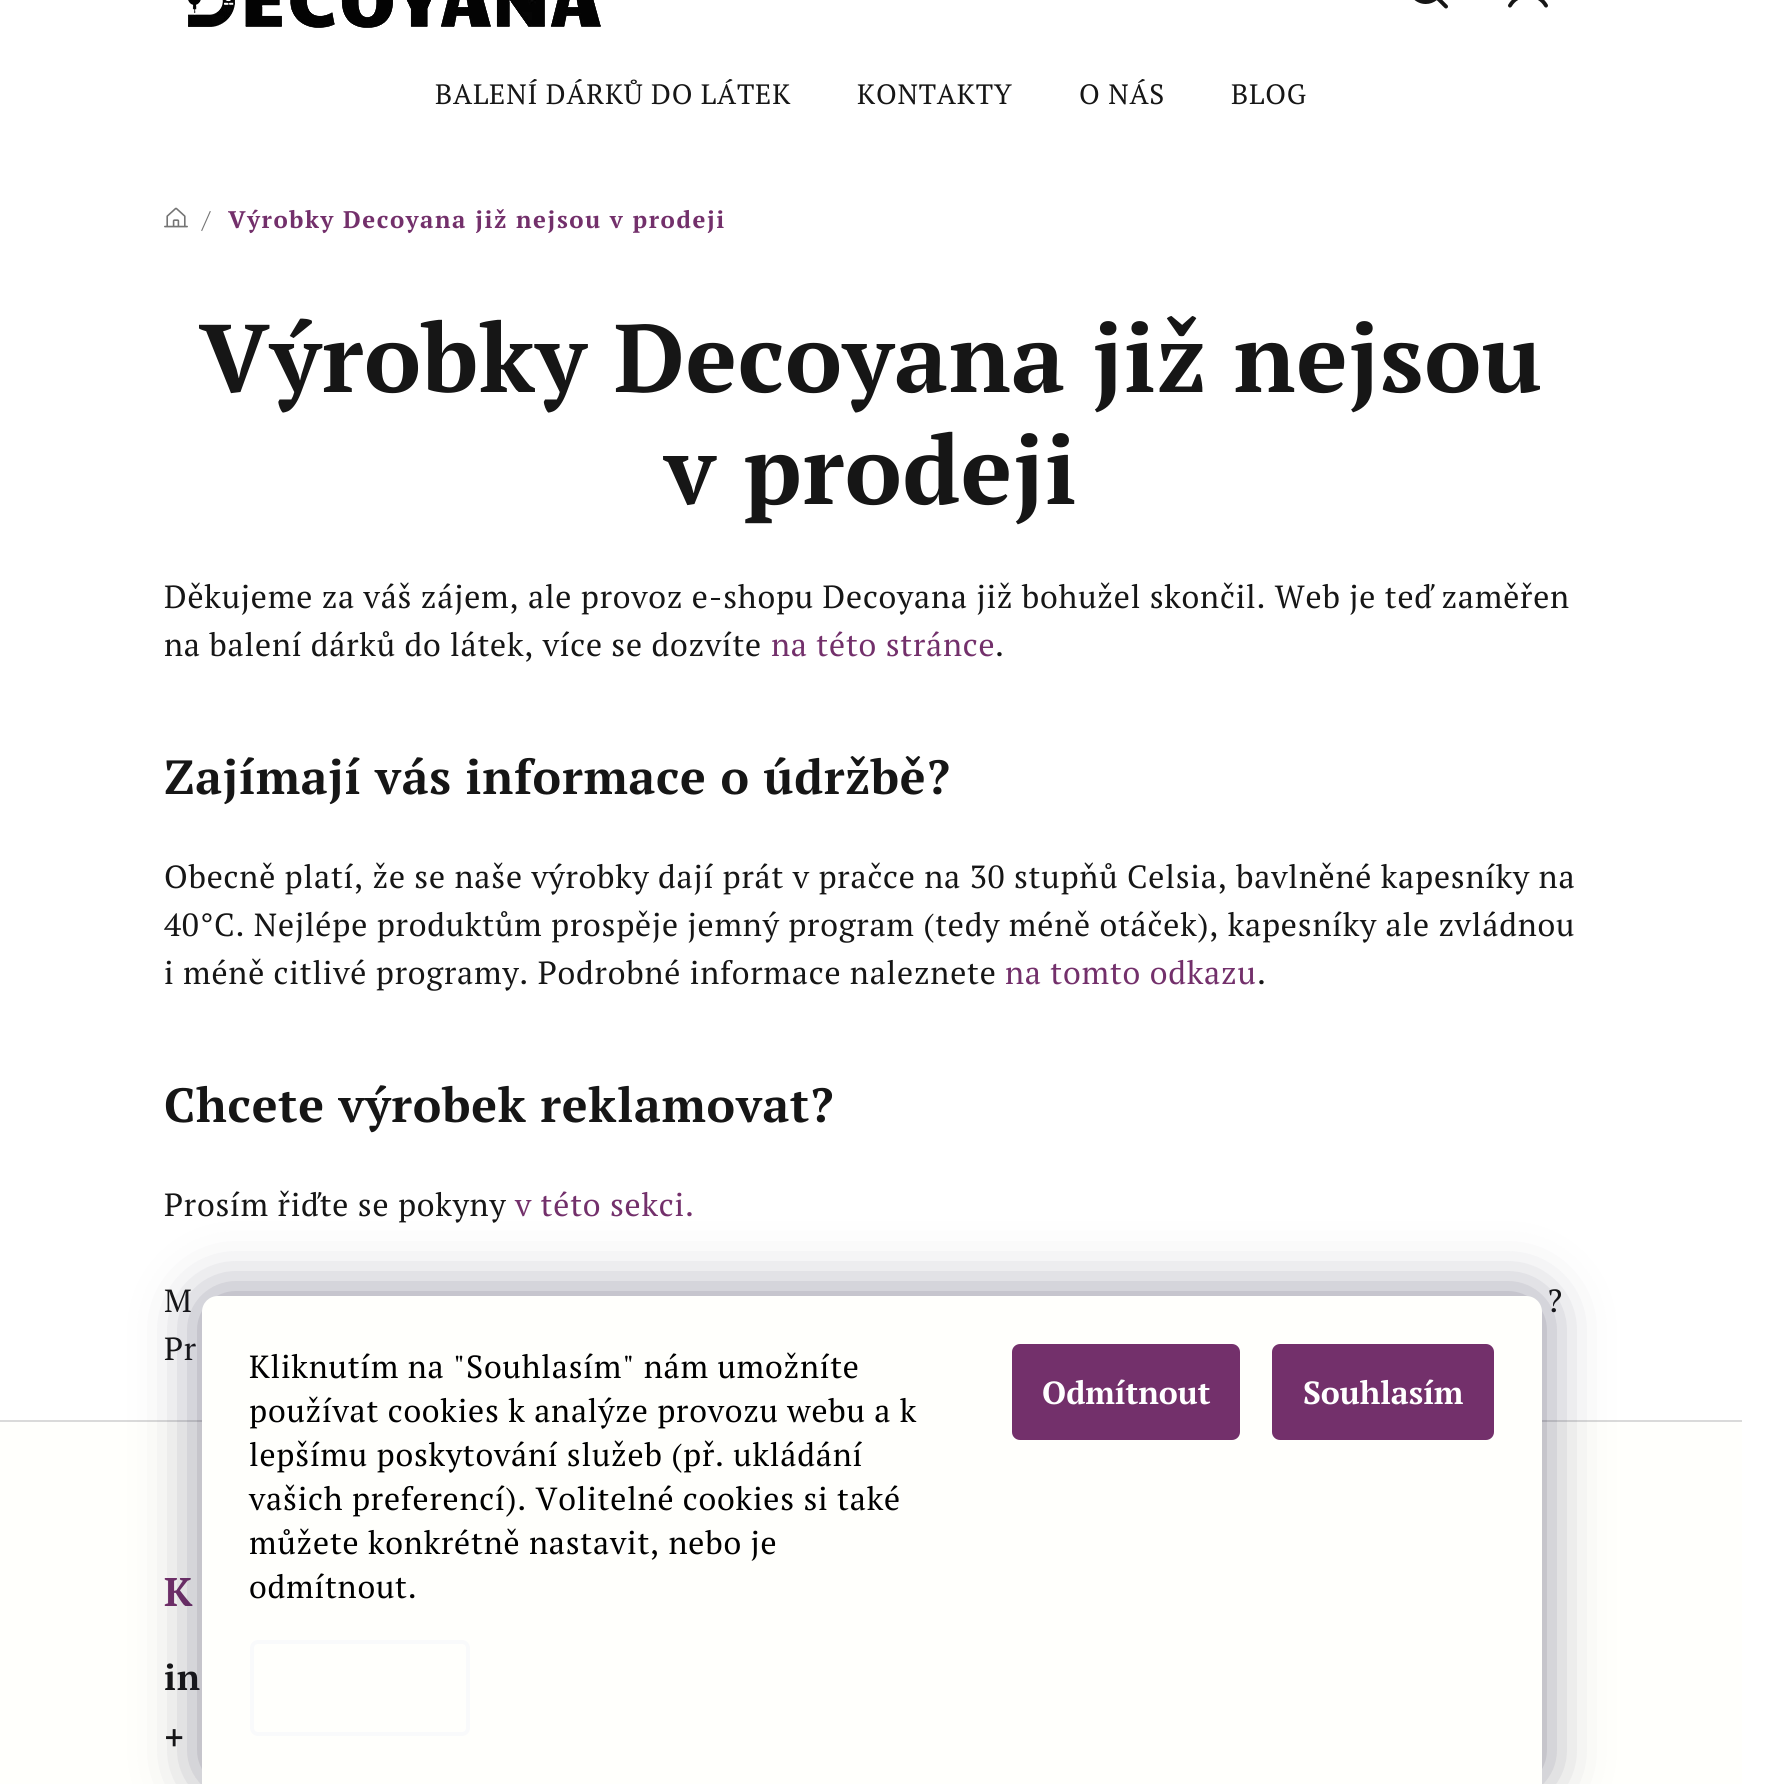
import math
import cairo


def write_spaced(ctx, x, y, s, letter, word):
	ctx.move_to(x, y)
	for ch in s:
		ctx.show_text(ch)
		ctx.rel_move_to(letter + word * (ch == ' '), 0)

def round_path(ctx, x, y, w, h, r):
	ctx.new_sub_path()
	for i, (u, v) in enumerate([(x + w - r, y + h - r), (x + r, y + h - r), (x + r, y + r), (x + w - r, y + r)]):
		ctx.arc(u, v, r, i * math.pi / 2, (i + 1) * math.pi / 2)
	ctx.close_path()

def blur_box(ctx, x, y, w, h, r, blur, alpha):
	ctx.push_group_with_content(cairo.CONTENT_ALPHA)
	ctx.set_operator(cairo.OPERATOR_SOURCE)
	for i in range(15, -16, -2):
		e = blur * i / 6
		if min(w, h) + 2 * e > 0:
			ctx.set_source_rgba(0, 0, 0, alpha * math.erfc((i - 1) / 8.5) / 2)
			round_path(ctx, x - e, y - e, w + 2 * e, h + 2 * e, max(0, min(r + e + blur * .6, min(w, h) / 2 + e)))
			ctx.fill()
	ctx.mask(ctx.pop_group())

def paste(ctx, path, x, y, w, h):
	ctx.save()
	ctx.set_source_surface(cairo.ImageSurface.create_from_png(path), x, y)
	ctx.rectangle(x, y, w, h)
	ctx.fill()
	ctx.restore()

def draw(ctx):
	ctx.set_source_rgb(1, 1, 1)
	ctx.paint()
	paste(ctx, 'media/1.png', 188, 0, 413, 28)
	paste(ctx, 'media/2.png', 1414, 0, 34, 9)
	paste(ctx, 'media/3.png', 1508, 0, 40, 8)
	ctx.select_font_face('PT Serif')
	ctx.set_font_size(28)
	ctx.set_source_rgb(0.086, 0.086, 0.086)
	for x, y, s in [
		(435, 104, 'BALENÍ DÁRKŮ DO LÁTEK'),
		(857, 104, 'KONTAKTY'),
		(1079, 104, 'O NÁS'),
		(1231, 104, 'BLOG'),
	]:
		write_spaced(ctx, x, y, s, 0.8, 0)
	paste(ctx, 'media/4.png', 164, 207, 24, 21)
	ctx.set_font_size(24)
	ctx.set_source_rgb(0.455, 0.455, 0.455)
	write_spaced(ctx, 202, 228, '/', 1.6, 0)
	ctx.select_font_face('PT Serif', cairo.FONT_SLANT_NORMAL, cairo.FONT_WEIGHT_BOLD)
	ctx.set_source_rgb(0.451, 0.188, 0.42)
	write_spaced(ctx, 228, 228, 'Výrobky Decoyana již nejsou v prodeji', 1.6, 0)
	ctx.set_font_size(96)
	ctx.set_source_rgb(0.086, 0.086, 0.086)
	write_spaced(ctx, 199, 392, 'Výrobky Decoyana již nejsou', 0.8, 0)
	write_spaced(ctx, 664, 504, 'v prodeji', 0.8, 0)
	ctx.select_font_face('PT Serif')
	ctx.set_font_size(32)
	write_spaced(ctx, 164, 608, 'Děkujeme za váš zájem, ale provoz e-shopu Decoyana již bohužel skončil. Web je teď zaměřen', 0.8, 0)
	write_spaced(ctx, 164, 656, 'na balení dárků do látek, více se dozvíte', 0.8, 0)
	ctx.set_source_rgb(0.451, 0.188, 0.42)
	write_spaced(ctx, 771, 656, 'na této stránce', 0.8, 0)
	ctx.set_source_rgb(0.086, 0.086, 0.086)
	write_spaced(ctx, 995, 656, '.', 0.8, 0)
	ctx.select_font_face('PT Serif', cairo.FONT_SLANT_NORMAL, cairo.FONT_WEIGHT_BOLD)
	ctx.set_font_size(48)
	write_spaced(ctx, 164, 794, 'Zajímají vás informace o údržbě?', 0.8, 0)
	ctx.select_font_face('PT Serif')
	ctx.set_font_size(32)
	for x, y, s in [
		(164, 888, 'Obecně platí, že se naše výrobky dají prát v pračce na 30 stupňů Celsia, bavlněné kapesníky na'),
		(164, 936, '40°C. Nejlépe produktům prospěje jemný program (tedy méně otáček), kapesníky ale zvládnou'),
		(164, 984, 'i méně citlivé programy. Podrobné informace naleznete'),
	]:
		write_spaced(ctx, x, y, s, 0.8, 0)
	ctx.set_source_rgb(0.451, 0.188, 0.42)
	write_spaced(ctx, 1005, 984, 'na tomto odkazu', 0.8, 0)
	ctx.set_source_rgb(0.086, 0.086, 0.086)
	write_spaced(ctx, 1257, 984, '.', 0.8, 0)
	ctx.select_font_face('PT Serif', cairo.FONT_SLANT_NORMAL, cairo.FONT_WEIGHT_BOLD)
	ctx.set_font_size(48)
	write_spaced(ctx, 164, 1122, 'Chcete výrobek reklamovat?', 0.8, 0)
	ctx.select_font_face('PT Serif')
	ctx.set_font_size(32)
	write_spaced(ctx, 164, 1216, 'Prosím řiďte se pokyny', 0.8, 0)
	ctx.set_source_rgb(0.451, 0.188, 0.42)
	write_spaced(ctx, 515, 1216, 'v této sekci.', 0.8, 0)
	ctx.set_source_rgb(0.086, 0.086, 0.086)
	for x, y, s in [
		(164, 1312, 'M'),
		(1547, 1312, '?'),
		(164, 1360, 'Pr'),
	]:
		write_spaced(ctx, x, y, s, 0.8, 0)
	ctx.set_source_rgb(1, 1, 0.988)
	ctx.rectangle(0, 1422, 1742, 362)
	ctx.fill()
	ctx.set_source_rgb(0.855, 0.855, 0.855)
	ctx.rectangle(0, 1420, 1742, 2)
	ctx.fill()
	ctx.select_font_face('PT Serif', cairo.FONT_SLANT_NORMAL, cairo.FONT_WEIGHT_BOLD)
	ctx.set_font_size(40)
	ctx.set_source_rgb(0.451, 0.188, 0.42)
	write_spaced(ctx, 164, 1606, 'K', 0.8, 0)
	ctx.set_font_size(36)
	ctx.set_source_rgb(0.086, 0.086, 0.086)
	write_spaced(ctx, 164, 1690, 'in', 0.8, 0)
	write_spaced(ctx, 164, 1750, '+', 0.8, 0)
	ctx.set_source_rgb(0.106, 0.098, 0.224)
	blur_box(ctx, 202, 1296, 1340, 488, 16, 30, 0.5)
	ctx.set_source_rgb(1, 1, 0.988)
	ctx.new_path()
	ctx.move_to(218, 1296)
	ctx.line_to(1526, 1296)
	ctx.curve_to(1535, 1296, 1542, 1303, 1542, 1312)
	ctx.line_to(1542, 1784)
	ctx.line_to(202, 1784)
	ctx.line_to(202, 1312)
	ctx.curve_to(202, 1303, 209, 1296, 218, 1296)
	ctx.close_path()
	ctx.fill()
	ctx.select_font_face('PT Serif')
	ctx.set_font_size(32)
	ctx.set_source_rgb(0, 0, 0)
	for x, y, s in [
		(249, 1378, 'Kliknutím na "Souhlasím" nám umožníte'),
		(249, 1422, 'používat cookies k analýze provozu webu a k'),
		(249, 1466, 'lepšímu poskytování služeb (př. ukládání'),
		(249, 1510, 'vašich preferencí). Volitelné cookies si také'),
		(249, 1554, 'můžete konkrétně nastavit, nebo je'),
		(249, 1598, 'odmítnout.'),
	]:
		write_spaced(ctx, x, y, s, 0.8, 0)
	round_path(ctx, 252, 1642, 216, 92, 6)
	ctx.set_source_rgb(0.973, 0.98, 0.984)
	ctx.set_line_width(4)
	ctx.stroke()
	ctx.set_source_rgb(0.451, 0.188, 0.42)
	round_path(ctx, 1012, 1344, 228, 96, 8)
	ctx.fill()
	ctx.select_font_face('PT Serif', cairo.FONT_SLANT_NORMAL, cairo.FONT_WEIGHT_BOLD)
	ctx.set_source_rgb(1, 1, 1)
	ctx.move_to(1042, 1404)
	ctx.show_text('Odmítnout')
	ctx.set_source_rgb(0.451, 0.188, 0.42)
	round_path(ctx, 1272, 1344, 222, 96, 8)
	ctx.fill()
	ctx.set_source_rgb(1, 1, 1)
	ctx.move_to(1303, 1404)
	ctx.show_text('Souhlasím')


surface = cairo.ImageSurface(cairo.FORMAT_RGB24, 1771, 1784)
ctx = cairo.Context(surface)
options = cairo.FontOptions()
options.set_hint_metrics(cairo.HINT_METRICS_OFF)
options.set_hint_style(cairo.HINT_STYLE_NONE)
ctx.set_font_options(options)
ctx.set_miter_limit(4)
draw(ctx)
surface.write_to_png('image.png')
